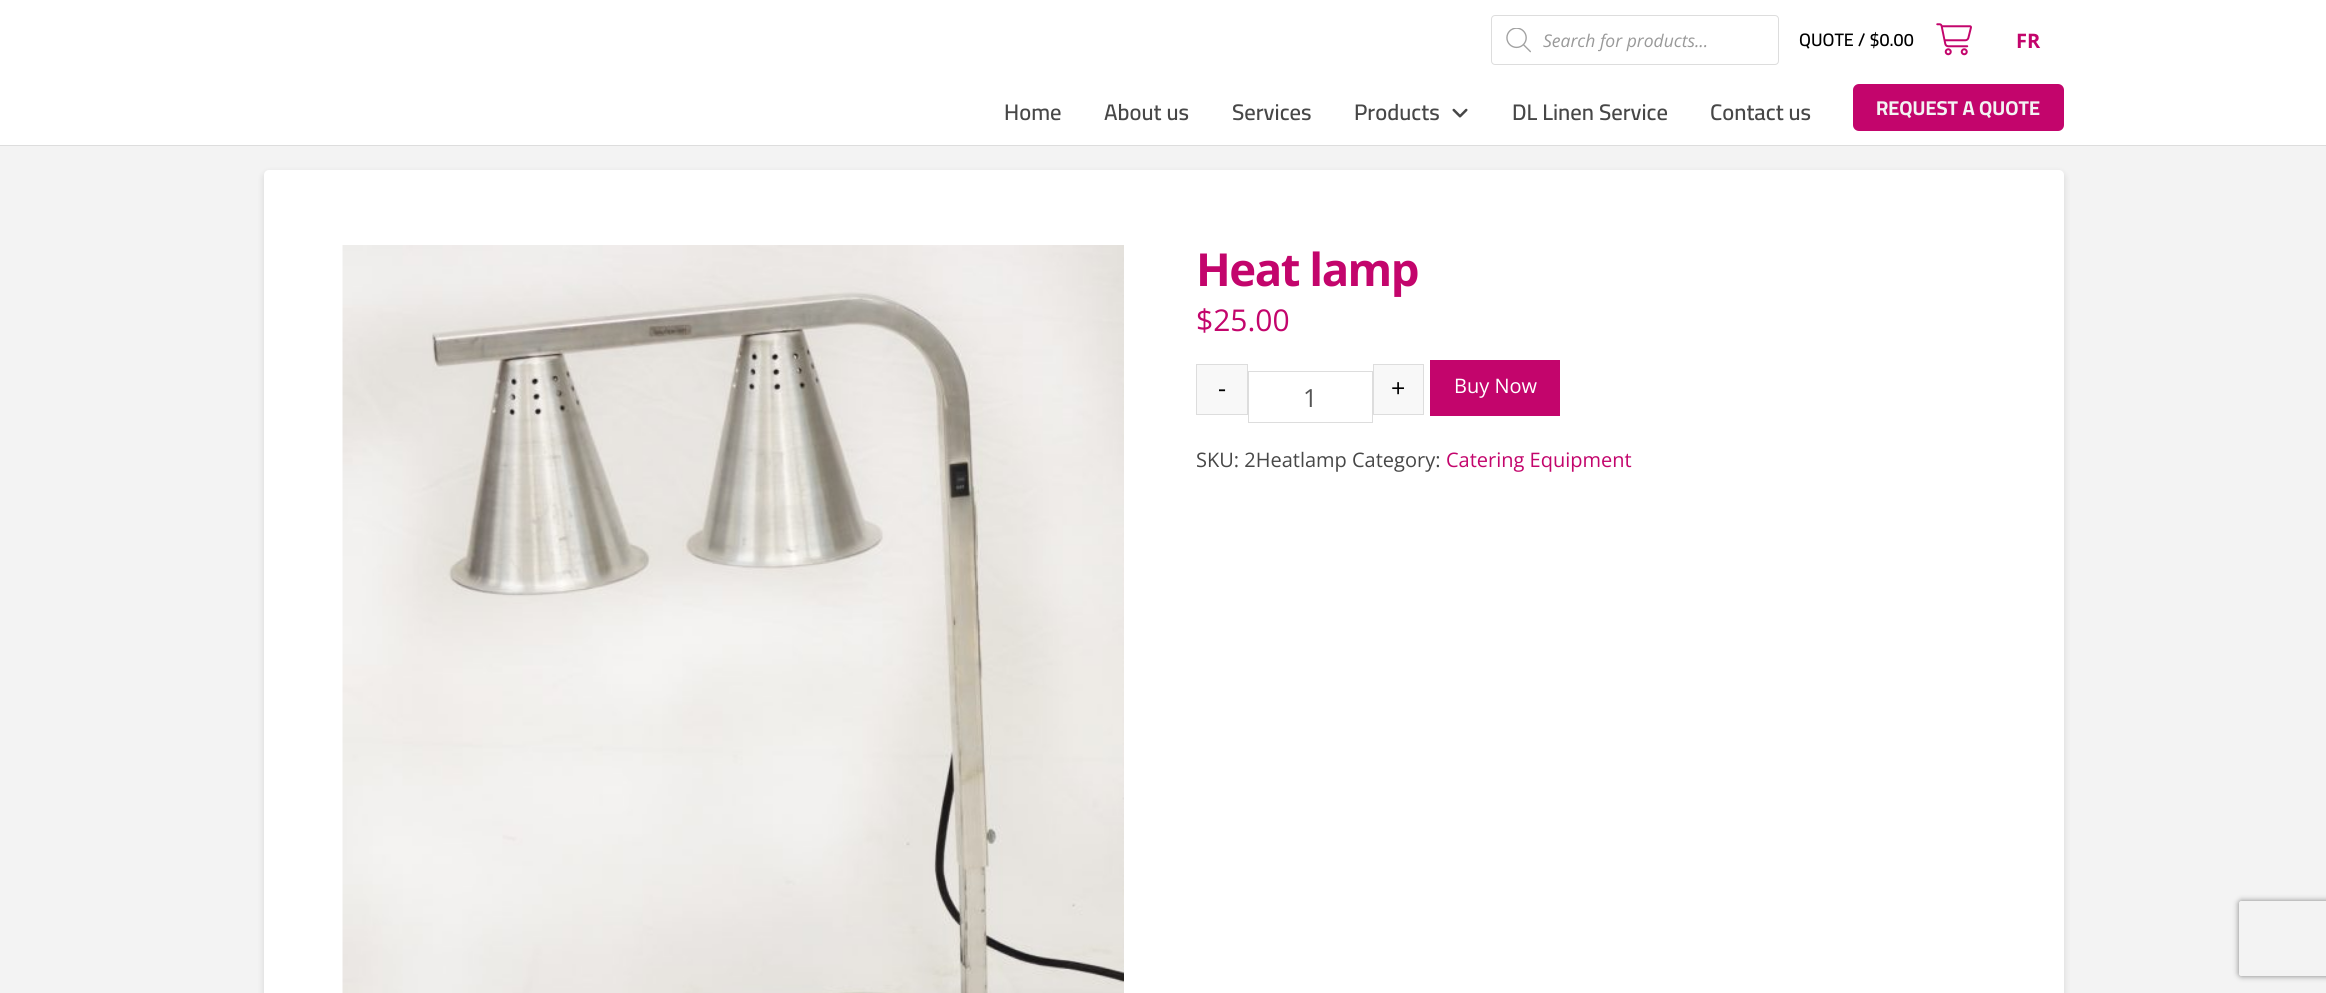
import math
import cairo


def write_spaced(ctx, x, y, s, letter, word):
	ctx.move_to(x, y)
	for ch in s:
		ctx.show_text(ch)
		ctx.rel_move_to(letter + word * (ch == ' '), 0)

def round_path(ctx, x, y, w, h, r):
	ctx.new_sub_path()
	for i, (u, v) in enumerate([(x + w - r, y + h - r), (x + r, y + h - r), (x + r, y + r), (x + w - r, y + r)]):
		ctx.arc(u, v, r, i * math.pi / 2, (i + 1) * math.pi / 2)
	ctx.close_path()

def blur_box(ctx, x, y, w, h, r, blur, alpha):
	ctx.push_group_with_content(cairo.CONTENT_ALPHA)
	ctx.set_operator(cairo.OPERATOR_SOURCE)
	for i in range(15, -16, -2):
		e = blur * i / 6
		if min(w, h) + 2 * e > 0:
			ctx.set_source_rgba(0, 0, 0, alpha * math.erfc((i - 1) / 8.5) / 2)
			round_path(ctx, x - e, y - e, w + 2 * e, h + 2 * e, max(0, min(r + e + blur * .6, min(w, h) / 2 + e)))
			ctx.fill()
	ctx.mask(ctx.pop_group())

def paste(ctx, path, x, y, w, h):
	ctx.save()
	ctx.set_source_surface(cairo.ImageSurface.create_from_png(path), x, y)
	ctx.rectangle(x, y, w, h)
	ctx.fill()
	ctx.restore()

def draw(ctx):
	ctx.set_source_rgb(0.953, 0.953, 0.953)
	ctx.paint()
	ctx.set_source_rgb(1, 1, 1)
	ctx.rectangle(0, 0, 2326, 145)
	ctx.fill()
	round_path(ctx, 1491.5, 15.5, 287, 49, 3.5)
	ctx.set_source_rgb(0.867, 0.867, 0.867)
	ctx.set_line_width(1)
	ctx.stroke()
	paste(ctx, 'media/1.png', 1506, 28, 25, 25)
	ctx.select_font_face('Open Sans', cairo.FONT_SLANT_ITALIC)
	ctx.set_font_size(17.5)
	ctx.set_source_rgb(0.6, 0.6, 0.6)
	ctx.move_to(1543, 47)
	ctx.show_text('Search for products...')
	ctx.select_font_face('Cairo SemiBold')
	ctx.set_font_size(18)
	ctx.set_source_rgb(0, 0, 0)
	ctx.move_to(1799, 46)
	ctx.show_text('QUOTE / $0.00')
	paste(ctx, 'media/2.png', 1936, 23, 36, 33)
	ctx.select_font_face('Open Sans', cairo.FONT_SLANT_NORMAL, cairo.FONT_WEIGHT_BOLD)
	ctx.set_font_size(20)
	ctx.set_source_rgb(0.765, 0.02, 0.424)
	ctx.move_to(2016, 48)
	ctx.show_text('FR')
	ctx.set_source_rgb(0.867, 0.867, 0.867)
	ctx.rectangle(0, 145, 2326, 1)
	ctx.fill()
	ctx.select_font_face('Cairo SemiBold')
	ctx.set_font_size(22.5)
	ctx.set_source_rgb(0.278, 0.278, 0.278)
	for x, y, s in [
		(1004, 120, 'Home'),
		(1104, 120, 'About us'),
		(1232, 120, 'Services'),
		(1354, 120, 'Products'),
	]:
		ctx.move_to(x, y)
		ctx.show_text(s)
	paste(ctx, 'media/3.png', 1452, 108, 16, 10)
	ctx.move_to(1512, 120)
	ctx.show_text('DL Linen Service')
	ctx.move_to(1710, 120)
	ctx.show_text('Contact us')
	ctx.set_source_rgb(0.765, 0.02, 0.424)
	round_path(ctx, 1853, 84, 211, 47, 6)
	ctx.fill()
	ctx.select_font_face('Cairo', cairo.FONT_SLANT_NORMAL, cairo.FONT_WEIGHT_BOLD)
	ctx.set_font_size(20)
	ctx.set_source_rgb(0.953, 0.953, 0.953)
	ctx.move_to(1876, 115)
	ctx.show_text('REQUEST A QUOTE')
	ctx.set_source_rgb(0, 0, 0)
	blur_box(ctx, 264, 173, 1800, 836, 5, 3.5, 0.13)
	ctx.set_source_rgb(1, 1, 1)
	round_path(ctx, 264, 170, 1800, 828, 5)
	ctx.fill()
	paste(ctx, 'media/4.png', 342, 245, 782, 748)
	ctx.select_font_face('Open Sans', cairo.FONT_SLANT_NORMAL, cairo.FONT_WEIGHT_BOLD)
	ctx.set_font_size(45.5)
	ctx.set_source_rgb(0.765, 0.02, 0.424)
	write_spaced(ctx, 1196, 286, 'Heat lamp', -1.5, 0)
	ctx.select_font_face('Open Sans')
	ctx.set_font_size(30)
	ctx.move_to(1196, 331)
	ctx.show_text('$25.00')
	ctx.set_source_rgb(0.969, 0.969, 0.969)
	ctx.rectangle(1196.5, 364.5, 51, 50)
	ctx.fill_preserve()
	ctx.set_source_rgb(0.867, 0.867, 0.867)
	ctx.stroke()
	ctx.set_font_size(25)
	ctx.set_source_rgb(0, 0, 0)
	ctx.move_to(1218, 397)
	ctx.show_text('-')
	ctx.rectangle(1248.5, 371.5, 124, 51)
	ctx.set_source_rgb(0.867, 0.867, 0.867)
	ctx.stroke()
	ctx.set_source_rgb(0.333, 0.333, 0.333)
	ctx.move_to(1303, 407)
	ctx.show_text('1')
	ctx.set_source_rgb(0.969, 0.969, 0.969)
	ctx.rectangle(1373.5, 364.5, 50, 50)
	ctx.fill_preserve()
	ctx.set_source_rgb(0.867, 0.867, 0.867)
	ctx.stroke()
	ctx.set_source_rgb(0, 0, 0)
	ctx.move_to(1391, 397)
	ctx.show_text('+')
	ctx.set_source_rgb(0.765, 0.02, 0.424)
	ctx.rectangle(1430, 360, 130, 56)
	ctx.fill()
	ctx.set_font_size(20)
	ctx.set_source_rgb(1, 1, 1)
	ctx.move_to(1454, 393)
	ctx.show_text('Buy Now')
	ctx.set_source_rgb(0.278, 0.278, 0.278)
	ctx.move_to(1196, 467)
	ctx.show_text('SKU: 2Heatlamp Category:')
	ctx.set_source_rgb(0.765, 0.02, 0.424)
	ctx.move_to(1446, 467)
	ctx.show_text('Catering Equipment')
	ctx.save()
	ctx.set_fill_rule(cairo.FILL_RULE_EVEN_ODD)
	ctx.new_path()
	ctx.move_to(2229, 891)
	ctx.line_to(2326, 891)
	ctx.line_to(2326, 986)
	ctx.line_to(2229, 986)
	ctx.close_path()
	ctx.move_to(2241.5, 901)
	ctx.line_to(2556.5, 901)
	ctx.curve_to(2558, 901, 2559, 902, 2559, 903.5)
	ctx.line_to(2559, 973.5)
	ctx.curve_to(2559, 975, 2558, 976, 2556.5, 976)
	ctx.line_to(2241.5, 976)
	ctx.curve_to(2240, 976, 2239, 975, 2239, 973.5)
	ctx.line_to(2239, 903.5)
	ctx.curve_to(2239, 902, 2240, 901, 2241.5, 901)
	ctx.close_path()
	ctx.clip()
	ctx.set_source_rgb(0.502, 0.502, 0.502)
	blur_box(ctx, 2239, 901, 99, 75, 2.5, 3, 1)
	ctx.restore()


surface = cairo.ImageSurface(cairo.FORMAT_RGB24, 2326, 993)
ctx = cairo.Context(surface)
options = cairo.FontOptions()
options.set_hint_metrics(cairo.HINT_METRICS_OFF)
options.set_hint_style(cairo.HINT_STYLE_NONE)
ctx.set_font_options(options)
ctx.set_miter_limit(4)
draw(ctx)
surface.write_to_png('image.png')
